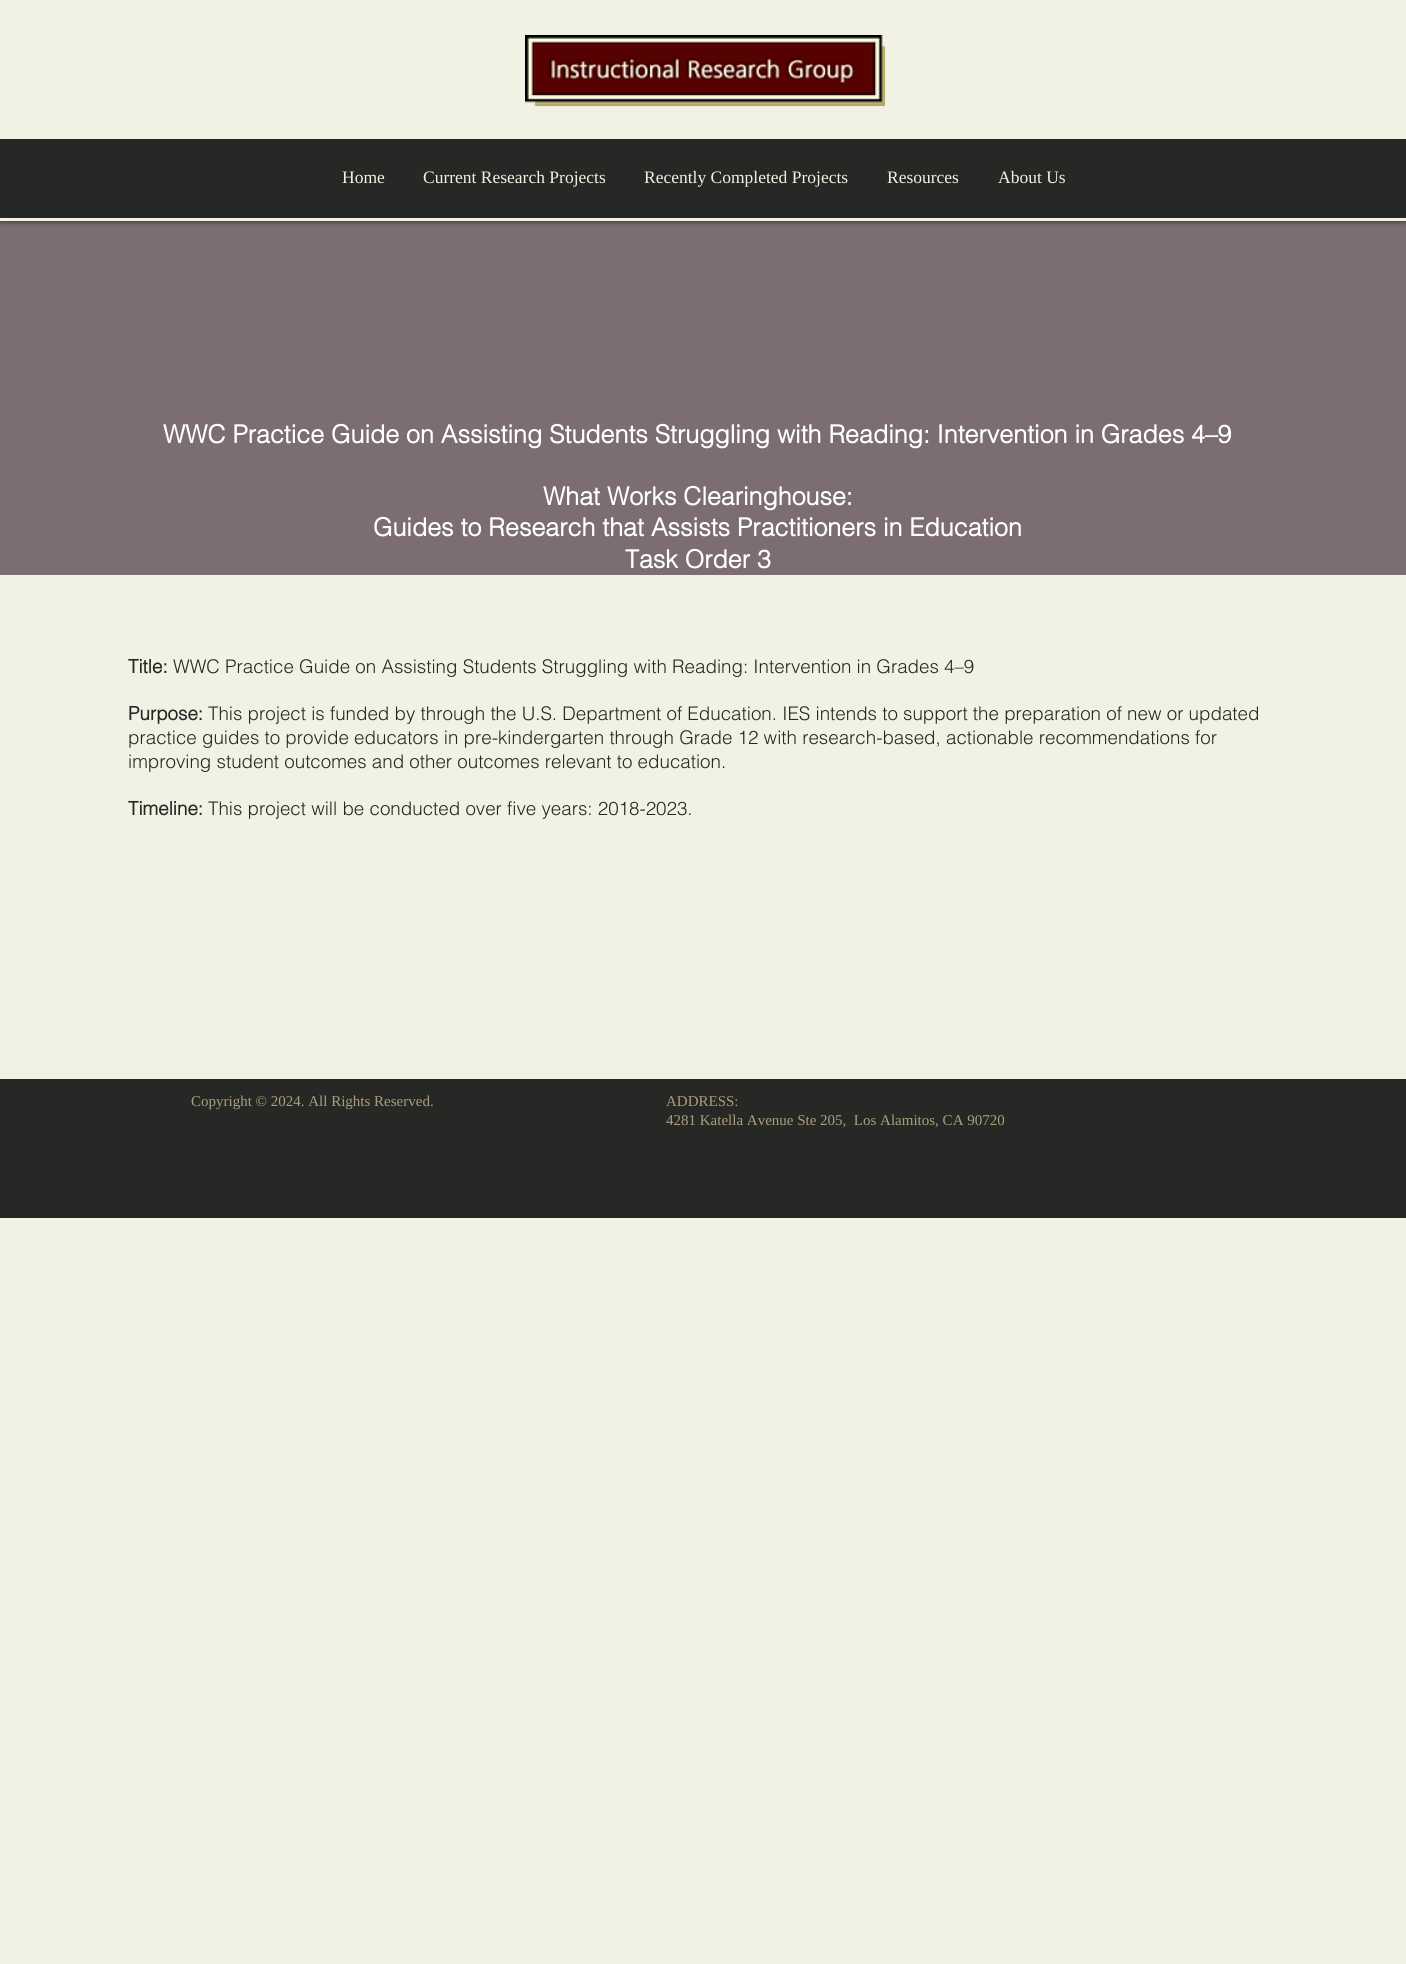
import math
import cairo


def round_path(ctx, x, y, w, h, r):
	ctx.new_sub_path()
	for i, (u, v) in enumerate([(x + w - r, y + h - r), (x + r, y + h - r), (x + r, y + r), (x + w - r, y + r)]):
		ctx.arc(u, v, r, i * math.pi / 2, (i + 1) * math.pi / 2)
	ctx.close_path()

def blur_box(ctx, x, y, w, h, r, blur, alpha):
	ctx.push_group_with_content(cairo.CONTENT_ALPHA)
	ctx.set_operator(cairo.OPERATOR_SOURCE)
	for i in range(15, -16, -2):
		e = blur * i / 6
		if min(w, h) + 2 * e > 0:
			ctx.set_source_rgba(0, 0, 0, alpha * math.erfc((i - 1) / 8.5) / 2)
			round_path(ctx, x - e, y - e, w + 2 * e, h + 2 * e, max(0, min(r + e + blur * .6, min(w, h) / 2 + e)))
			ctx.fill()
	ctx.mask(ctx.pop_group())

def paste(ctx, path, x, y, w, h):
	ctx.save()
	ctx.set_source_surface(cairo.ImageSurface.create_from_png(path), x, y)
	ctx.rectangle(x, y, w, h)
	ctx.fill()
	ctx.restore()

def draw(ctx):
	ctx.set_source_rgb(0.945, 0.945, 0.894)
	ctx.paint()
	ctx.set_source_rgb(0.486, 0.427, 0.451)
	ctx.rectangle(0, 221, 1406, 354)
	ctx.fill()
	ctx.save()
	ctx.rectangle(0, 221, 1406, 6)
	ctx.clip()
	ctx.set_source_rgb(0, 0, 0)
	blur_box(ctx, 0, 0, 1406, 221, 0, 3, 0.7)
	ctx.restore()
	paste(ctx, 'media/1.png', 525, 35, 360, 72)
	ctx.set_source_rgb(0.153, 0.153, 0.145)
	ctx.rectangle(0, 139, 1406, 79)
	ctx.fill()
	ctx.select_font_face('Liberation Serif')
	ctx.set_font_size(17.5)
	ctx.set_source_rgb(0.945, 0.945, 0.894)
	for x, y, s in [
		(342, 183, 'Home'),
		(423, 183, 'Current Research Projects'),
		(644, 183, 'Recently Completed Projects'),
		(887, 183, 'Resources'),
		(998, 183, 'About Us'),
	]:
		ctx.move_to(x, y)
		ctx.show_text(s)
	ctx.select_font_face('helvetica', cairo.FONT_SLANT_NORMAL, cairo.FONT_WEIGHT_BOLD)
	ctx.set_font_size(25)
	ctx.set_source_rgb(1, 1, 1)
	for x, y, s in [
		(163, 443, 'WWC Practice Guide on Assisting Students Struggling with Reading: Intervention in Grades 4–9'),
		(543, 505, 'What Works Clearinghouse:'),
		(373, 536, 'Guides to Research that Assists Practitioners in Education'),
		(625, 568, 'Task Order 3'),
	]:
		ctx.move_to(x, y)
		ctx.show_text(s)
	ctx.set_font_size(18.75)
	ctx.set_source_rgb(0.153, 0.153, 0.145)
	ctx.move_to(128, 673)
	ctx.show_text('Title:')
	ctx.select_font_face('helvetica Light')
	ctx.move_to(173, 673)
	ctx.show_text('WWC Practice Guide on Assisting Students Struggling with Reading: Intervention in Grades 4–9')
	ctx.select_font_face('helvetica', cairo.FONT_SLANT_NORMAL, cairo.FONT_WEIGHT_BOLD)
	ctx.move_to(128, 720)
	ctx.show_text('Purpose:')
	ctx.select_font_face('helvetica Light')
	for x, y, s in [
		(208, 720, 'This project is funded by through the U.S. Department of Education. IES intends to support the preparation of new or updated'),
		(128, 744, 'practice guides to provide educators in pre-kindergarten through Grade 12 with research-based, actionable recommendations for'),
		(128, 768, 'improving student outcomes and other outcomes relevant to education.'),
	]:
		ctx.move_to(x, y)
		ctx.show_text(s)
	ctx.select_font_face('helvetica', cairo.FONT_SLANT_NORMAL, cairo.FONT_WEIGHT_BOLD)
	ctx.move_to(128, 815)
	ctx.show_text('Timeline:')
	ctx.select_font_face('helvetica Light')
	ctx.move_to(208, 815)
	ctx.show_text('This project will be conducted over five years: 2018-2023.')
	ctx.rectangle(0, 1079, 1406, 139)
	ctx.fill()
	ctx.select_font_face('Liberation Serif')
	ctx.set_font_size(15)
	ctx.set_source_rgb(0.667, 0.624, 0.482)
	for x, y, s in [
		(191, 1106, 'Copyright © 2024. All Rights Reserved.'),
		(666, 1106, 'ADDRESS:'),
		(666, 1125, '4281 Katella Avenue Ste 205,  Los Alamitos, CA 90720'),
	]:
		ctx.move_to(x, y)
		ctx.show_text(s)


surface = cairo.ImageSurface(cairo.FORMAT_RGB24, 1406, 1964)
ctx = cairo.Context(surface)
options = cairo.FontOptions()
options.set_hint_metrics(cairo.HINT_METRICS_OFF)
options.set_hint_style(cairo.HINT_STYLE_NONE)
ctx.set_font_options(options)
ctx.set_miter_limit(4)
draw(ctx)
surface.write_to_png('image.png')
